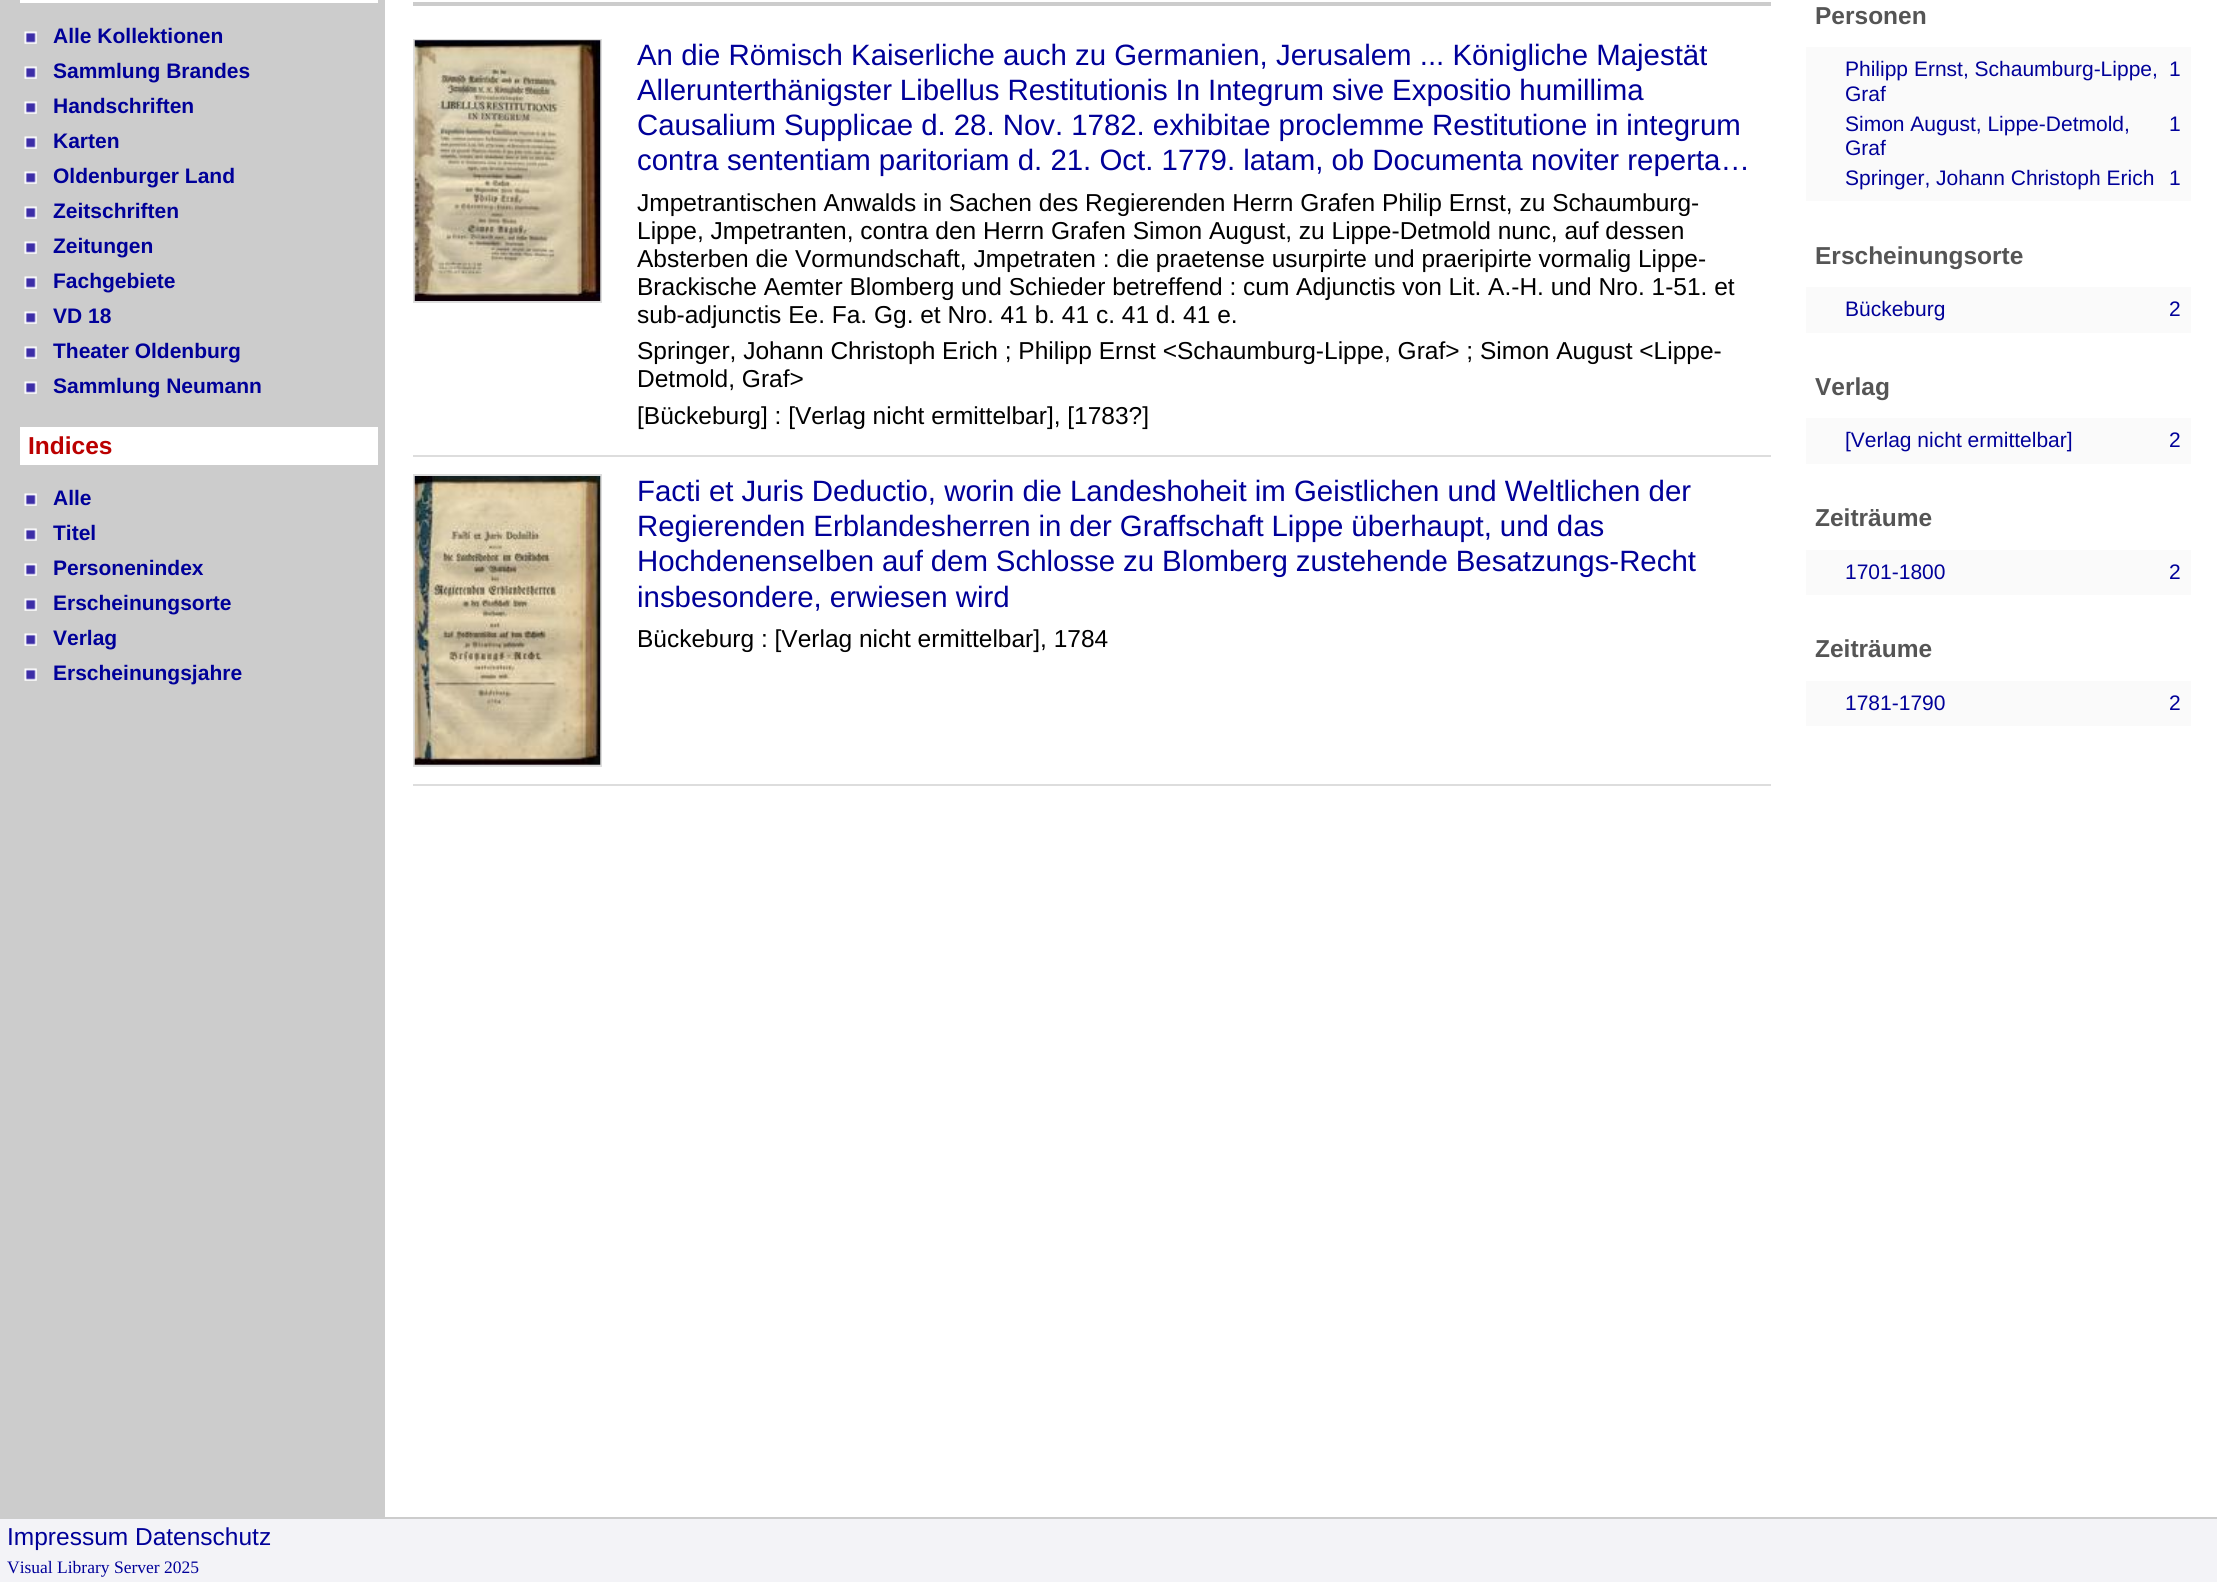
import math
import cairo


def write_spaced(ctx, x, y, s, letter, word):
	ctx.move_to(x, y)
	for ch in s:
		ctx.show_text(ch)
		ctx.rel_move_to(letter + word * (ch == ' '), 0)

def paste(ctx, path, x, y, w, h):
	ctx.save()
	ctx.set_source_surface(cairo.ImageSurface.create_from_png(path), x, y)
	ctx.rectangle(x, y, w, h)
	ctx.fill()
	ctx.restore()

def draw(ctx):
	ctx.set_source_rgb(1, 1, 1)
	ctx.paint()
	ctx.set_source_rgb(0.8, 0.8, 0.8)
	ctx.rectangle(0, 0, 385, 1517)
	ctx.fill()
	ctx.set_source_rgb(1, 1, 1)
	ctx.rectangle(19, -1, 360, 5)
	ctx.fill_preserve()
	ctx.set_source_rgb(0.8, 0.8, 0.8)
	ctx.stroke()
	paste(ctx, 'media/1.png', 24, 31, 13, 13)
	ctx.select_font_face('Liberation Sans', cairo.FONT_SLANT_NORMAL, cairo.FONT_WEIGHT_BOLD)
	ctx.set_font_size(21)
	ctx.set_source_rgb(0, 0, 0.6)
	ctx.move_to(53, 43)
	ctx.show_text('Alle Kollektionen')
	paste(ctx, 'media/1.png', 24, 66, 13, 13)
	ctx.move_to(53, 78)
	ctx.show_text('Sammlung Brandes')
	paste(ctx, 'media/1.png', 24, 101, 13, 13)
	ctx.move_to(53, 113)
	ctx.show_text('Handschriften')
	paste(ctx, 'media/1.png', 24, 136, 13, 13)
	ctx.move_to(53, 148)
	ctx.show_text('Karten')
	paste(ctx, 'media/1.png', 24, 171, 13, 13)
	ctx.move_to(53, 183)
	ctx.show_text('Oldenburger Land')
	paste(ctx, 'media/1.png', 24, 206, 13, 13)
	ctx.move_to(53, 218)
	ctx.show_text('Zeitschriften')
	paste(ctx, 'media/1.png', 24, 241, 13, 13)
	ctx.move_to(53, 253)
	ctx.show_text('Zeitungen')
	paste(ctx, 'media/1.png', 24, 276, 13, 13)
	ctx.move_to(53, 288)
	ctx.show_text('Fachgebiete')
	paste(ctx, 'media/1.png', 24, 311, 13, 13)
	ctx.move_to(53, 323)
	ctx.show_text('VD 18')
	paste(ctx, 'media/1.png', 24, 346, 13, 13)
	ctx.move_to(53, 358)
	ctx.show_text('Theater Oldenburg')
	paste(ctx, 'media/1.png', 24, 381, 13, 13)
	ctx.move_to(53, 393)
	ctx.show_text('Sammlung Neumann')
	ctx.set_source_rgb(1, 1, 1)
	ctx.rectangle(20, 427, 358, 38)
	ctx.fill()
	ctx.set_font_size(24.5)
	ctx.set_source_rgb(0.733, 0, 0)
	ctx.move_to(28, 454)
	ctx.show_text('Indices')
	paste(ctx, 'media/1.png', 24, 493, 13, 13)
	ctx.set_font_size(21)
	ctx.set_source_rgb(0, 0, 0.6)
	ctx.move_to(53, 505)
	ctx.show_text('Alle')
	paste(ctx, 'media/1.png', 24, 528, 13, 13)
	ctx.move_to(53, 540)
	ctx.show_text('Titel')
	paste(ctx, 'media/1.png', 24, 563, 13, 13)
	ctx.move_to(53, 575)
	ctx.show_text('Personenindex')
	paste(ctx, 'media/1.png', 24, 598, 13, 13)
	ctx.move_to(53, 610)
	ctx.show_text('Erscheinungsorte')
	paste(ctx, 'media/1.png', 24, 633, 13, 13)
	ctx.move_to(53, 645)
	ctx.show_text('Verlag')
	paste(ctx, 'media/1.png', 24, 668, 13, 13)
	ctx.move_to(53, 680)
	ctx.show_text('Erscheinungsjahre')
	ctx.set_source_rgb(0.8, 0.8, 0.8)
	ctx.rectangle(413, 2, 1358, 4)
	ctx.fill()
	ctx.rectangle(414, 40, 187, 262)
	ctx.set_source_rgb(0.867, 0.867, 0.867)
	ctx.stroke()
	paste(ctx, 'media/2.png', 414, 40, 187, 261)
	ctx.select_font_face('Liberation Sans')
	ctx.set_font_size(29.4)
	ctx.set_source_rgb(0, 0, 0.6)
	ctx.move_to(637, 65)
	ctx.show_text('An die Römisch Kaiserliche auch zu Germanien, Jerusalem ... Königliche Majestät')
	write_spaced(ctx, 637, 100, 'Allerunterthänigster Libellus Restitutionis In Integrum sive Expositio humillima', 0, -0.25)
	write_spaced(ctx, 637, 135, 'Causalium Supplicae d. 28. Nov. 1782. exhibitae proclemme Restitutione in integrum', 0, -0.1)
	ctx.move_to(637, 170)
	ctx.show_text('contra sententiam paritoriam d. 21. Oct. 1779. latam, ob Documenta noviter reperta…')
	ctx.set_font_size(24.5)
	ctx.set_source_rgb(0, 0, 0)
	for x, y, s in [
		(637, 211, 'Jmpetrantischen Anwalds in Sachen des Regierenden Herrn Grafen Philip Ernst, zu Schaumburg-'),
		(637, 239, 'Lippe, Jmpetranten, contra den Herrn Grafen Simon August, zu Lippe-Detmold nunc, auf dessen'),
		(637, 267, 'Absterben die Vormundschaft, Jmpetraten : die praetense usurpirte und praeripirte vormalig Lippe-'),
		(637, 295, 'Brackische Aemter Blomberg und Schieder betreffend : cum Adjunctis von Lit. A.-H. und Nro. 1-51. et'),
		(637, 323, 'sub-adjunctis Ee. Fa. Gg. et Nro. 41 b. 41 c. 41 d. 41 e.'),
		(637, 359, 'Springer, Johann Christoph Erich ; Philipp Ernst <Schaumburg-Lippe, Graf> ; Simon August <Lippe-'),
		(637, 387, 'Detmold, Graf>'),
		(637, 424, '[Bückeburg] : [Verlag nicht ermittelbar], [1783?]'),
	]:
		ctx.move_to(x, y)
		ctx.show_text(s)
	ctx.set_source_rgb(0.867, 0.867, 0.867)
	ctx.rectangle(413, 455, 1358, 2)
	ctx.fill()
	ctx.rectangle(413, 784, 1358, 2)
	ctx.fill()
	ctx.rectangle(414, 475, 187, 291)
	ctx.stroke()
	paste(ctx, 'media/3.png', 414, 476, 187, 289)
	ctx.set_font_size(29.4)
	ctx.set_source_rgb(0, 0, 0.6)
	ctx.move_to(637, 501)
	ctx.show_text('Facti et Juris Deductio, worin die Landeshoheit im Geistlichen und Weltlichen der')
	write_spaced(ctx, 637, 536, 'Regierenden Erblandesherren in der Graffschaft Lippe überhaupt, und das', 0, -0.25)
	write_spaced(ctx, 637, 571, 'Hochdenenselben auf dem Schlosse zu Blomberg zustehende Besatzungs-Recht', 0, -0.25)
	ctx.move_to(637, 607)
	ctx.show_text('insbesondere, erwiesen wird')
	ctx.set_font_size(24.5)
	ctx.set_source_rgb(0, 0, 0)
	ctx.move_to(637, 647)
	ctx.show_text('Bückeburg : [Verlag nicht ermittelbar], 1784')
	ctx.select_font_face('Liberation Sans', cairo.FONT_SLANT_NORMAL, cairo.FONT_WEIGHT_BOLD)
	ctx.set_source_rgb(0.333, 0.333, 0.333)
	ctx.move_to(1815, 24)
	ctx.show_text('Personen')
	ctx.set_source_rgb(0.98, 0.98, 0.98)
	ctx.rectangle(1806, 47, 385, 154)
	ctx.fill()
	ctx.select_font_face('Liberation Sans')
	ctx.set_font_size(21)
	ctx.set_source_rgb(0, 0, 0.6)
	for x, y, s in [
		(1845, 76, 'Philipp Ernst, Schaumburg-Lippe,'),
		(2169, 76, '1'),
		(1845, 101, 'Graf'),
		(1845, 131, 'Simon August, Lippe-Detmold,'),
		(2169, 131, '1'),
		(1845, 155, 'Graf'),
		(1845, 185, 'Springer, Johann Christoph Erich'),
		(2169, 185, '1'),
	]:
		ctx.move_to(x, y)
		ctx.show_text(s)
	ctx.select_font_face('Liberation Sans', cairo.FONT_SLANT_NORMAL, cairo.FONT_WEIGHT_BOLD)
	ctx.set_font_size(24.5)
	ctx.set_source_rgb(0.333, 0.333, 0.333)
	ctx.move_to(1815, 264)
	ctx.show_text('Erscheinungsorte')
	ctx.set_source_rgb(0.98, 0.98, 0.98)
	ctx.rectangle(1806, 287, 385, 46)
	ctx.fill()
	ctx.select_font_face('Liberation Sans')
	ctx.set_font_size(21)
	ctx.set_source_rgb(0, 0, 0.6)
	ctx.move_to(1845, 316)
	ctx.show_text('Bückeburg')
	ctx.move_to(2169, 316)
	ctx.show_text('2')
	ctx.select_font_face('Liberation Sans', cairo.FONT_SLANT_NORMAL, cairo.FONT_WEIGHT_BOLD)
	ctx.set_font_size(24.5)
	ctx.set_source_rgb(0.333, 0.333, 0.333)
	ctx.move_to(1815, 395)
	ctx.show_text('Verlag')
	ctx.set_source_rgb(0.98, 0.98, 0.98)
	ctx.rectangle(1806, 418, 385, 46)
	ctx.fill()
	ctx.select_font_face('Liberation Sans')
	ctx.set_font_size(21)
	ctx.set_source_rgb(0, 0, 0.6)
	ctx.move_to(1845, 447)
	ctx.show_text('[Verlag nicht ermittelbar]')
	ctx.move_to(2169, 447)
	ctx.show_text('2')
	ctx.select_font_face('Liberation Sans', cairo.FONT_SLANT_NORMAL, cairo.FONT_WEIGHT_BOLD)
	ctx.set_font_size(24.5)
	ctx.set_source_rgb(0.333, 0.333, 0.333)
	ctx.move_to(1815, 526)
	ctx.show_text('Zeiträume')
	ctx.set_source_rgb(0.98, 0.98, 0.98)
	ctx.rectangle(1806, 550, 385, 45)
	ctx.fill()
	ctx.select_font_face('Liberation Sans')
	ctx.set_font_size(21)
	ctx.set_source_rgb(0, 0, 0.6)
	ctx.move_to(1845, 579)
	ctx.show_text('1701-1800')
	ctx.move_to(2169, 579)
	ctx.show_text('2')
	ctx.select_font_face('Liberation Sans', cairo.FONT_SLANT_NORMAL, cairo.FONT_WEIGHT_BOLD)
	ctx.set_font_size(24.5)
	ctx.set_source_rgb(0.333, 0.333, 0.333)
	ctx.move_to(1815, 657)
	ctx.show_text('Zeiträume')
	ctx.set_source_rgb(0.98, 0.98, 0.98)
	ctx.rectangle(1806, 681, 385, 45)
	ctx.fill()
	ctx.select_font_face('Liberation Sans')
	ctx.set_font_size(21)
	ctx.set_source_rgb(0, 0, 0.6)
	ctx.move_to(1845, 710)
	ctx.show_text('1781-1790')
	ctx.move_to(2169, 710)
	ctx.show_text('2')
	ctx.set_source_rgb(0.953, 0.953, 0.965)
	ctx.rectangle(0, 1519, 2217, 63)
	ctx.fill()
	ctx.set_source_rgb(0.8, 0.8, 0.8)
	ctx.rectangle(0, 1517, 2217, 2)
	ctx.fill()
	ctx.set_font_size(24.5)
	ctx.set_source_rgb(0, 0, 0.6)
	ctx.move_to(7, 1545)
	ctx.show_text('Impressum Datenschutz')
	ctx.select_font_face('Liberation Serif')
	ctx.set_font_size(17.5)
	ctx.move_to(7, 1573)
	ctx.show_text('Visual Library Server 2025')


surface = cairo.ImageSurface(cairo.FORMAT_RGB24, 2217, 1582)
ctx = cairo.Context(surface)
options = cairo.FontOptions()
options.set_hint_metrics(cairo.HINT_METRICS_OFF)
options.set_hint_style(cairo.HINT_STYLE_NONE)
ctx.set_font_options(options)
ctx.set_miter_limit(4)
draw(ctx)
surface.write_to_png('image.png')
